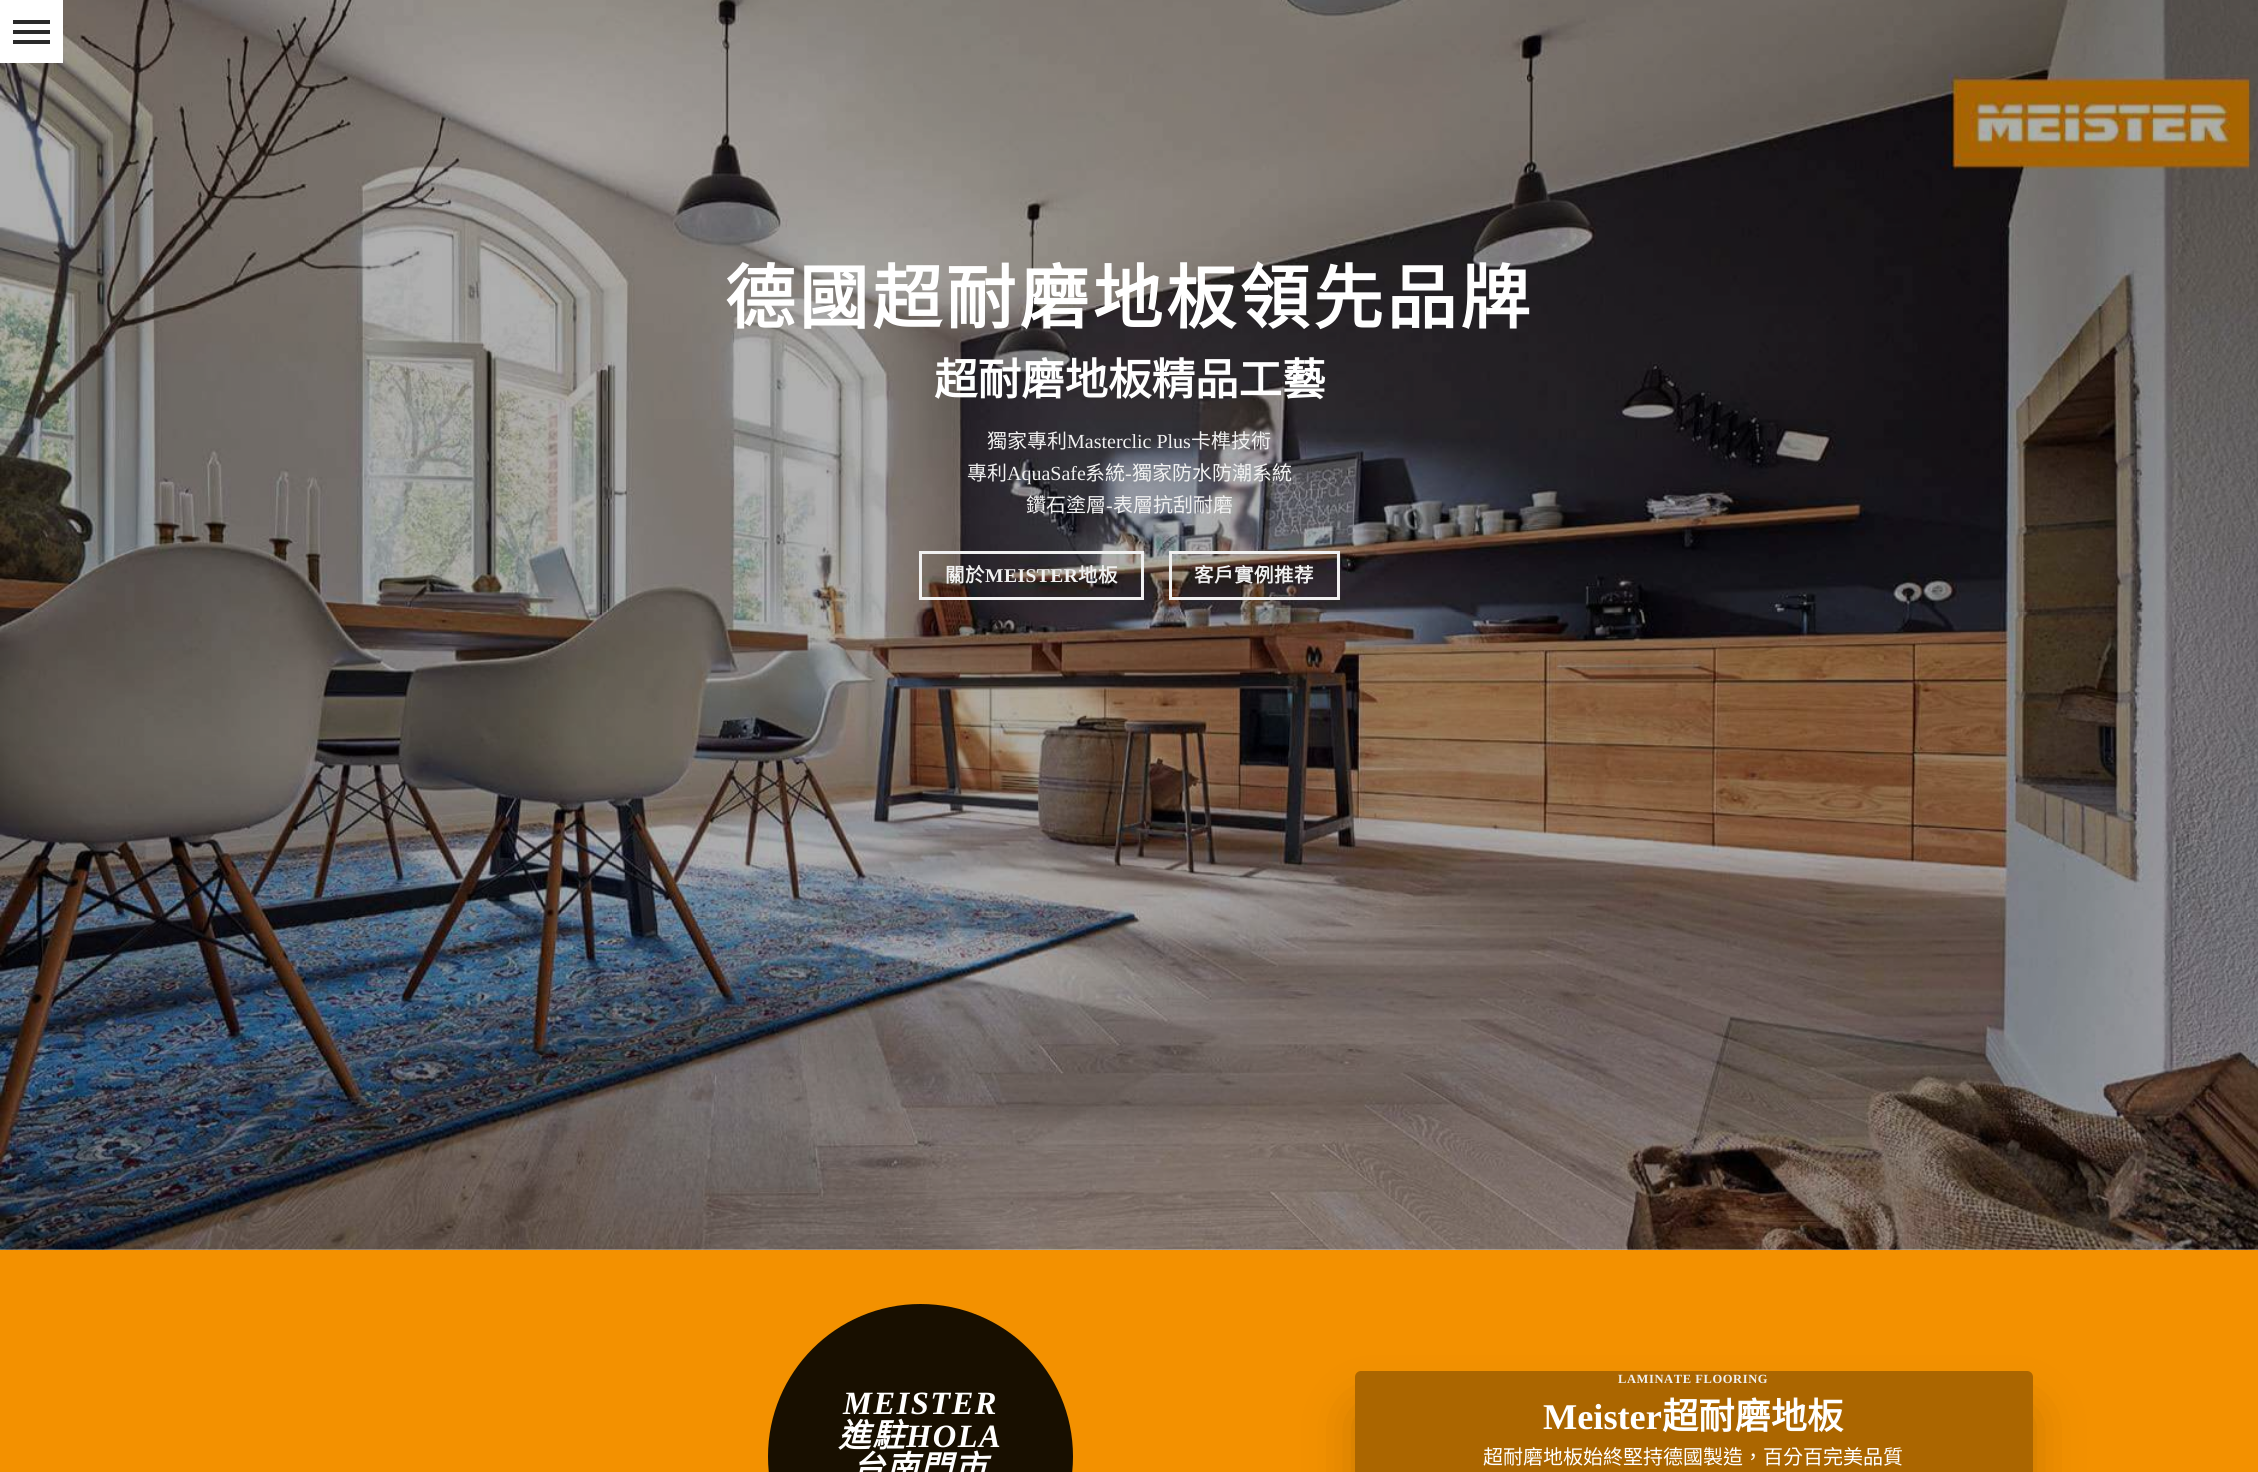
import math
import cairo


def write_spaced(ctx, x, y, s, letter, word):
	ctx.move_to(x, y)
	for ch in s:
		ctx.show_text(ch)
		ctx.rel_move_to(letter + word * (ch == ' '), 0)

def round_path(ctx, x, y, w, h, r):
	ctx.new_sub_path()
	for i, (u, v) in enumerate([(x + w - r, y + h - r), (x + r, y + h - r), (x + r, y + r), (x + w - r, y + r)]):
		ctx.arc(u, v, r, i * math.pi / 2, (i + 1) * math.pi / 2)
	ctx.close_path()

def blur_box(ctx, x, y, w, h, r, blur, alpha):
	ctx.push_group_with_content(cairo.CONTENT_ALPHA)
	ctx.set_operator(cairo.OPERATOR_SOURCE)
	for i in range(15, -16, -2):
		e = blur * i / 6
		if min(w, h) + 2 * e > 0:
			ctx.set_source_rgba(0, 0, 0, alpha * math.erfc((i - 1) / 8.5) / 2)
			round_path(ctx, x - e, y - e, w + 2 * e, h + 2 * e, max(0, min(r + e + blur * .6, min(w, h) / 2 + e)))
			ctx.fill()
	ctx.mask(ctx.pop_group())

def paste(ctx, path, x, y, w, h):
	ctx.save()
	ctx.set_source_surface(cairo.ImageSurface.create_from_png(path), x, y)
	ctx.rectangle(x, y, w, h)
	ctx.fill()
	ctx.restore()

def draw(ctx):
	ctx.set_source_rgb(1, 1, 1)
	ctx.paint()
	paste(ctx, 'media/1.png', 0, 0, 2258, 1250)
	ctx.set_source_rgb(1, 1, 1)
	ctx.rectangle(0, 0, 63, 63)
	ctx.fill()
	ctx.set_source_rgb(0.161, 0.161, 0.161)
	ctx.rectangle(13, 30, 37, 4)
	ctx.rectangle(13, 20, 37, 4)
	ctx.rectangle(13, 40, 37, 4)
	ctx.fill()
	ctx.select_font_face('Noto Sans CJK TC', cairo.FONT_SLANT_NORMAL, cairo.FONT_WEIGHT_BOLD)
	ctx.set_font_size(70)
	ctx.set_source_rgb(1, 1, 1)
	write_spaced(ctx, 725, 323, '德國超耐磨地板領先品牌', 3.5, 0)
	ctx.set_font_size(43.5)
	ctx.move_to(934, 395)
	ctx.show_text('超耐磨地板精品工藝')
	ctx.select_font_face('Noto Sans CJK TC')
	ctx.set_font_size(20)
	ctx.set_source_rgb(0.945, 0.945, 0.945)
	ctx.move_to(987, 448)
	ctx.show_text('獨家專利')
	ctx.select_font_face('Liberation Serif')
	ctx.move_to(1067, 448)
	ctx.show_text('Masterclic Plus')
	ctx.select_font_face('Noto Sans CJK TC')
	ctx.move_to(1191, 448)
	ctx.show_text('卡榫技術')
	ctx.move_to(967, 480)
	ctx.show_text('專利')
	ctx.select_font_face('Liberation Serif')
	ctx.move_to(1007, 480)
	ctx.show_text('AquaSafe')
	ctx.select_font_face('Noto Sans CJK TC')
	ctx.move_to(1085, 480)
	ctx.show_text('系統')
	ctx.select_font_face('Liberation Serif')
	ctx.move_to(1125, 480)
	ctx.show_text('-')
	ctx.select_font_face('Noto Sans CJK TC')
	ctx.move_to(1132, 480)
	ctx.show_text('獨家防水防潮系統')
	ctx.move_to(1026, 512)
	ctx.show_text('鑽石塗層')
	ctx.select_font_face('Liberation Serif')
	ctx.move_to(1106, 512)
	ctx.show_text('-')
	ctx.select_font_face('Noto Sans CJK TC')
	ctx.move_to(1113, 512)
	ctx.show_text('表層抗刮耐磨')
	ctx.rectangle(920.5, 552.5, 222, 46)
	ctx.set_line_width(3)
	ctx.stroke()
	ctx.select_font_face('Noto Sans CJK TC', cairo.FONT_SLANT_NORMAL, cairo.FONT_WEIGHT_BOLD)
	ctx.set_font_size(19.5)
	write_spaced(ctx, 945, 582, '關於', 0.5, 0)
	ctx.select_font_face('Liberation Serif', cairo.FONT_SLANT_NORMAL, cairo.FONT_WEIGHT_BOLD)
	write_spaced(ctx, 985, 582, 'MEISTER', 0.5, 0)
	ctx.select_font_face('Noto Sans CJK TC', cairo.FONT_SLANT_NORMAL, cairo.FONT_WEIGHT_BOLD)
	write_spaced(ctx, 1078, 582, '地板', 0.5, 0)
	ctx.rectangle(1170.5, 552.5, 168, 46)
	ctx.stroke()
	write_spaced(ctx, 1194, 582, '客戶實例推荐', 0.5, 0)
	ctx.set_source_rgb(0.953, 0.569, 0)
	ctx.rectangle(0, 1250, 2258, 222)
	ctx.fill()
	ctx.set_source_rgb(0.094, 0.059, 0)
	ctx.arc(920.5, 1456.5, 152.5, 0, 2 * math.pi)
	ctx.fill()
	ctx.select_font_face('Liberation Serif', cairo.FONT_SLANT_ITALIC, cairo.FONT_WEIGHT_BOLD)
	ctx.set_font_size(32.5)
	ctx.set_source_rgb(1, 1, 1)
	write_spaced(ctx, 843, 1414, 'MEISTER', 1.5, 0)
	ctx.select_font_face('Noto Sans CJK TC', cairo.FONT_SLANT_ITALIC, cairo.FONT_WEIGHT_BOLD)
	write_spaced(ctx, 838, 1447, '進駐', 1.5, 0)
	ctx.select_font_face('Liberation Serif', cairo.FONT_SLANT_ITALIC, cairo.FONT_WEIGHT_BOLD)
	write_spaced(ctx, 906, 1447, 'HOLA', 1.5, 0)
	ctx.select_font_face('Noto Sans CJK TC', cairo.FONT_SLANT_ITALIC, cairo.FONT_WEIGHT_BOLD)
	write_spaced(ctx, 852, 1479, '台南門市', 1.5, 0)
	ctx.save()
	ctx.set_fill_rule(cairo.FILL_RULE_EVEN_ODD)
	ctx.new_path()
	ctx.move_to(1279, 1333)
	ctx.line_to(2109, 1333)
	ctx.line_to(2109, 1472)
	ctx.line_to(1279, 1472)
	ctx.close_path()
	ctx.move_to(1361, 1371)
	ctx.line_to(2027, 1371)
	ctx.curve_to(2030.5, 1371, 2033, 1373.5, 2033, 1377)
	ctx.line_to(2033, 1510)
	ctx.curve_to(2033, 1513.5, 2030.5, 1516, 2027, 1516)
	ctx.line_to(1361, 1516)
	ctx.curve_to(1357.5, 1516, 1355, 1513.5, 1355, 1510)
	ctx.line_to(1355, 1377)
	ctx.curve_to(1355, 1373.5, 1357.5, 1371, 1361, 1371)
	ctx.close_path()
	ctx.clip()
	ctx.set_source_rgb(0, 0, 0)
	blur_box(ctx, 1355, 1409, 678, 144, 6, 25, 0.2)
	ctx.restore()
	ctx.set_source_rgba(0, 0, 0, 0.3)
	round_path(ctx, 1355, 1371, 678, 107, 6)
	ctx.fill()
	ctx.select_font_face('Liberation Serif', cairo.FONT_SLANT_NORMAL, cairo.FONT_WEIGHT_BOLD)
	ctx.set_font_size(12.5)
	ctx.set_source_rgb(0.945, 0.945, 0.945)
	write_spaced(ctx, 1618, 1383, 'LAMINATE FLOORING', 0.6, 0)
	ctx.set_font_size(36.25)
	ctx.set_source_rgb(1, 1, 1)
	ctx.move_to(1543, 1429)
	ctx.show_text('Meister')
	ctx.select_font_face('Noto Sans CJK TC', cairo.FONT_SLANT_NORMAL, cairo.FONT_WEIGHT_BOLD)
	ctx.move_to(1662, 1429)
	ctx.show_text('超耐磨地板')
	ctx.select_font_face('Noto Sans CJK TC')
	ctx.set_font_size(20)
	ctx.move_to(1483, 1464)
	ctx.show_text('超耐磨地板始終堅持德國製造，百分百完美品質')


surface = cairo.ImageSurface(cairo.FORMAT_RGB24, 2258, 1472)
ctx = cairo.Context(surface)
options = cairo.FontOptions()
options.set_hint_metrics(cairo.HINT_METRICS_OFF)
options.set_hint_style(cairo.HINT_STYLE_NONE)
ctx.set_font_options(options)
ctx.set_miter_limit(4)
draw(ctx)
surface.write_to_png('image.png')
